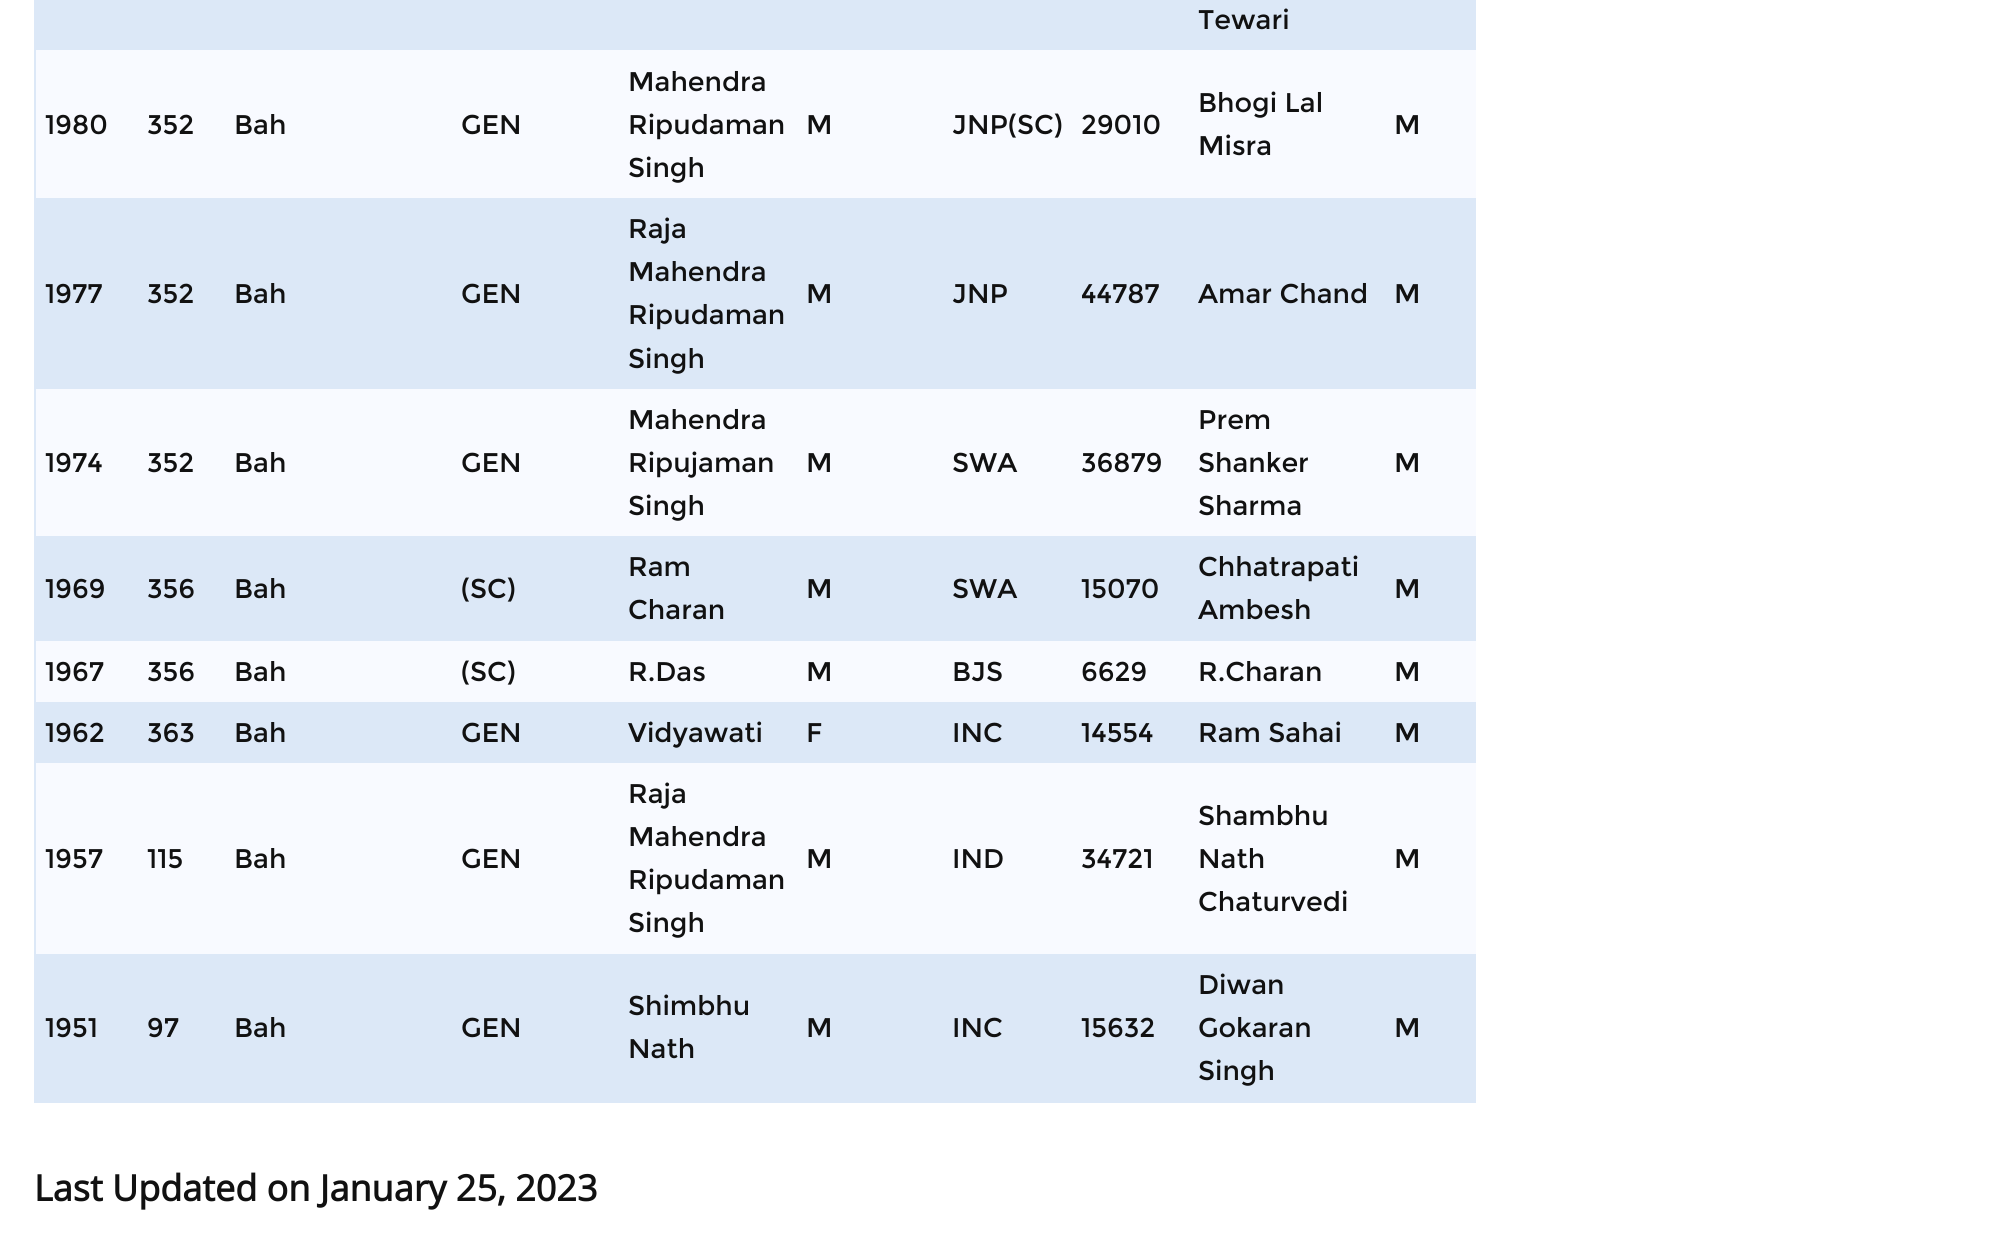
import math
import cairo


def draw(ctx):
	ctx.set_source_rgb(1, 1, 1)
	ctx.paint()
	ctx.set_source_rgb(0.863, 0.91, 0.965)
	ctx.rectangle(34, 0, 2, 1103)
	ctx.fill()
	ctx.rectangle(36, 0, 1440, 50)
	ctx.fill()
	ctx.select_font_face('Montserrat')
	ctx.set_font_size(27)
	ctx.set_source_rgb(0.067, 0.067, 0.067)
	ctx.move_to(1198, 29)
	ctx.show_text('Tewari')
	ctx.set_source_rgb(0.969, 0.98, 1)
	ctx.rectangle(36, 50, 1440, 148)
	ctx.fill()
	ctx.set_source_rgb(0.067, 0.067, 0.067)
	for x, y, s in [
		(45, 134, '1980'),
		(147, 134, '352'),
		(234, 134, 'Bah'),
		(461, 134, 'GEN'),
		(628, 91, 'Mahendra'),
		(628, 134, 'Ripudaman'),
		(628, 177, 'Singh'),
		(806, 134, 'M'),
		(952, 134, 'JNP(SC)'),
		(1081, 134, '29010'),
		(1198, 112, 'Bhogi Lal'),
		(1198, 155, 'Misra'),
		(1394, 134, 'M'),
	]:
		ctx.move_to(x, y)
		ctx.show_text(s)
	ctx.set_source_rgb(0.863, 0.91, 0.965)
	ctx.rectangle(36, 198, 1440, 191)
	ctx.fill()
	ctx.set_source_rgb(0.067, 0.067, 0.067)
	for x, y, s in [
		(45, 303, '1977'),
		(147, 303, '352'),
		(234, 303, 'Bah'),
		(461, 303, 'GEN'),
		(628, 238, 'Raja'),
		(628, 281, 'Mahendra'),
		(628, 324, 'Ripudaman'),
		(628, 368, 'Singh'),
		(806, 303, 'M'),
		(952, 303, 'JNP'),
		(1081, 303, '44787'),
		(1198, 303, 'Amar Chand'),
		(1394, 303, 'M'),
	]:
		ctx.move_to(x, y)
		ctx.show_text(s)
	ctx.set_source_rgb(0.969, 0.98, 1)
	ctx.rectangle(36, 389, 1440, 147)
	ctx.fill()
	ctx.set_source_rgb(0.067, 0.067, 0.067)
	for x, y, s in [
		(45, 472, '1974'),
		(147, 472, '352'),
		(234, 472, 'Bah'),
		(461, 472, 'GEN'),
		(628, 429, 'Mahendra'),
		(628, 472, 'Ripujaman'),
		(628, 515, 'Singh'),
		(806, 472, 'M'),
		(952, 472, 'SWA'),
		(1081, 472, '36879'),
		(1198, 429, 'Prem'),
		(1198, 472, 'Shanker'),
		(1198, 515, 'Sharma'),
		(1394, 472, 'M'),
	]:
		ctx.move_to(x, y)
		ctx.show_text(s)
	ctx.set_source_rgb(0.863, 0.91, 0.965)
	ctx.rectangle(36, 536, 1440, 105)
	ctx.fill()
	ctx.set_source_rgb(0.067, 0.067, 0.067)
	for x, y, s in [
		(45, 598, '1969'),
		(147, 598, '356'),
		(234, 598, 'Bah'),
		(461, 598, '(SC)'),
		(628, 576, 'Ram'),
		(628, 619, 'Charan'),
		(806, 598, 'M'),
		(952, 598, 'SWA'),
		(1081, 598, '15070'),
		(1198, 576, 'Chhatrapati'),
		(1198, 619, 'Ambesh'),
		(1394, 598, 'M'),
	]:
		ctx.move_to(x, y)
		ctx.show_text(s)
	ctx.set_source_rgb(0.969, 0.98, 1)
	ctx.rectangle(36, 641, 1440, 61)
	ctx.fill()
	ctx.set_source_rgb(0.067, 0.067, 0.067)
	for x, y, s in [
		(45, 681, '1967'),
		(147, 681, '356'),
		(234, 681, 'Bah'),
		(461, 681, '(SC)'),
		(628, 681, 'R.Das'),
		(806, 681, 'M'),
		(952, 681, 'BJS'),
		(1081, 681, '6629'),
		(1198, 681, 'R.Charan'),
		(1394, 681, 'M'),
	]:
		ctx.move_to(x, y)
		ctx.show_text(s)
	ctx.set_source_rgb(0.863, 0.91, 0.965)
	ctx.rectangle(36, 702, 1440, 61)
	ctx.fill()
	ctx.set_source_rgb(0.067, 0.067, 0.067)
	for x, y, s in [
		(45, 742, '1962'),
		(147, 742, '363'),
		(234, 742, 'Bah'),
		(461, 742, 'GEN'),
		(628, 742, 'Vidyawati'),
		(806, 742, 'F'),
		(952, 742, 'INC'),
		(1081, 742, '14554'),
		(1198, 742, 'Ram Sahai'),
		(1394, 742, 'M'),
	]:
		ctx.move_to(x, y)
		ctx.show_text(s)
	ctx.set_source_rgb(0.969, 0.98, 1)
	ctx.rectangle(36, 763, 1440, 191)
	ctx.fill()
	ctx.set_source_rgb(0.067, 0.067, 0.067)
	for x, y, s in [
		(45, 868, '1957'),
		(147, 868, '115'),
		(234, 868, 'Bah'),
		(461, 868, 'GEN'),
		(628, 803, 'Raja'),
		(628, 846, 'Mahendra'),
		(628, 889, 'Ripudaman'),
		(628, 932, 'Singh'),
		(806, 868, 'M'),
		(952, 868, 'IND'),
		(1081, 868, '34721'),
		(1198, 825, 'Shambhu'),
		(1198, 868, 'Nath'),
		(1198, 911, 'Chaturvedi'),
		(1394, 868, 'M'),
	]:
		ctx.move_to(x, y)
		ctx.show_text(s)
	ctx.set_source_rgb(0.863, 0.91, 0.965)
	ctx.rectangle(36, 954, 1440, 149)
	ctx.fill()
	ctx.set_source_rgb(0.067, 0.067, 0.067)
	for x, y, s in [
		(45, 1037, '1951'),
		(147, 1037, '97'),
		(234, 1037, 'Bah'),
		(461, 1037, 'GEN'),
		(628, 1015, 'Shimbhu'),
		(628, 1058, 'Nath'),
		(806, 1037, 'M'),
		(952, 1037, 'INC'),
		(1081, 1037, '15632'),
		(1198, 994, 'Diwan'),
		(1198, 1037, 'Gokaran'),
		(1198, 1080, 'Singh'),
		(1394, 1037, 'M'),
	]:
		ctx.move_to(x, y)
		ctx.show_text(s)
	ctx.select_font_face('Open Sans', cairo.FONT_SLANT_NORMAL, cairo.FONT_WEIGHT_BOLD)
	ctx.set_font_size(36)
	ctx.move_to(34, 1201)
	ctx.show_text('Last Updated on January 25, 2023')


surface = cairo.ImageSurface(cairo.FORMAT_RGB24, 2011, 1250)
ctx = cairo.Context(surface)
options = cairo.FontOptions()
options.set_hint_metrics(cairo.HINT_METRICS_OFF)
options.set_hint_style(cairo.HINT_STYLE_NONE)
ctx.set_font_options(options)
ctx.set_miter_limit(4)
draw(ctx)
surface.write_to_png('image.png')
